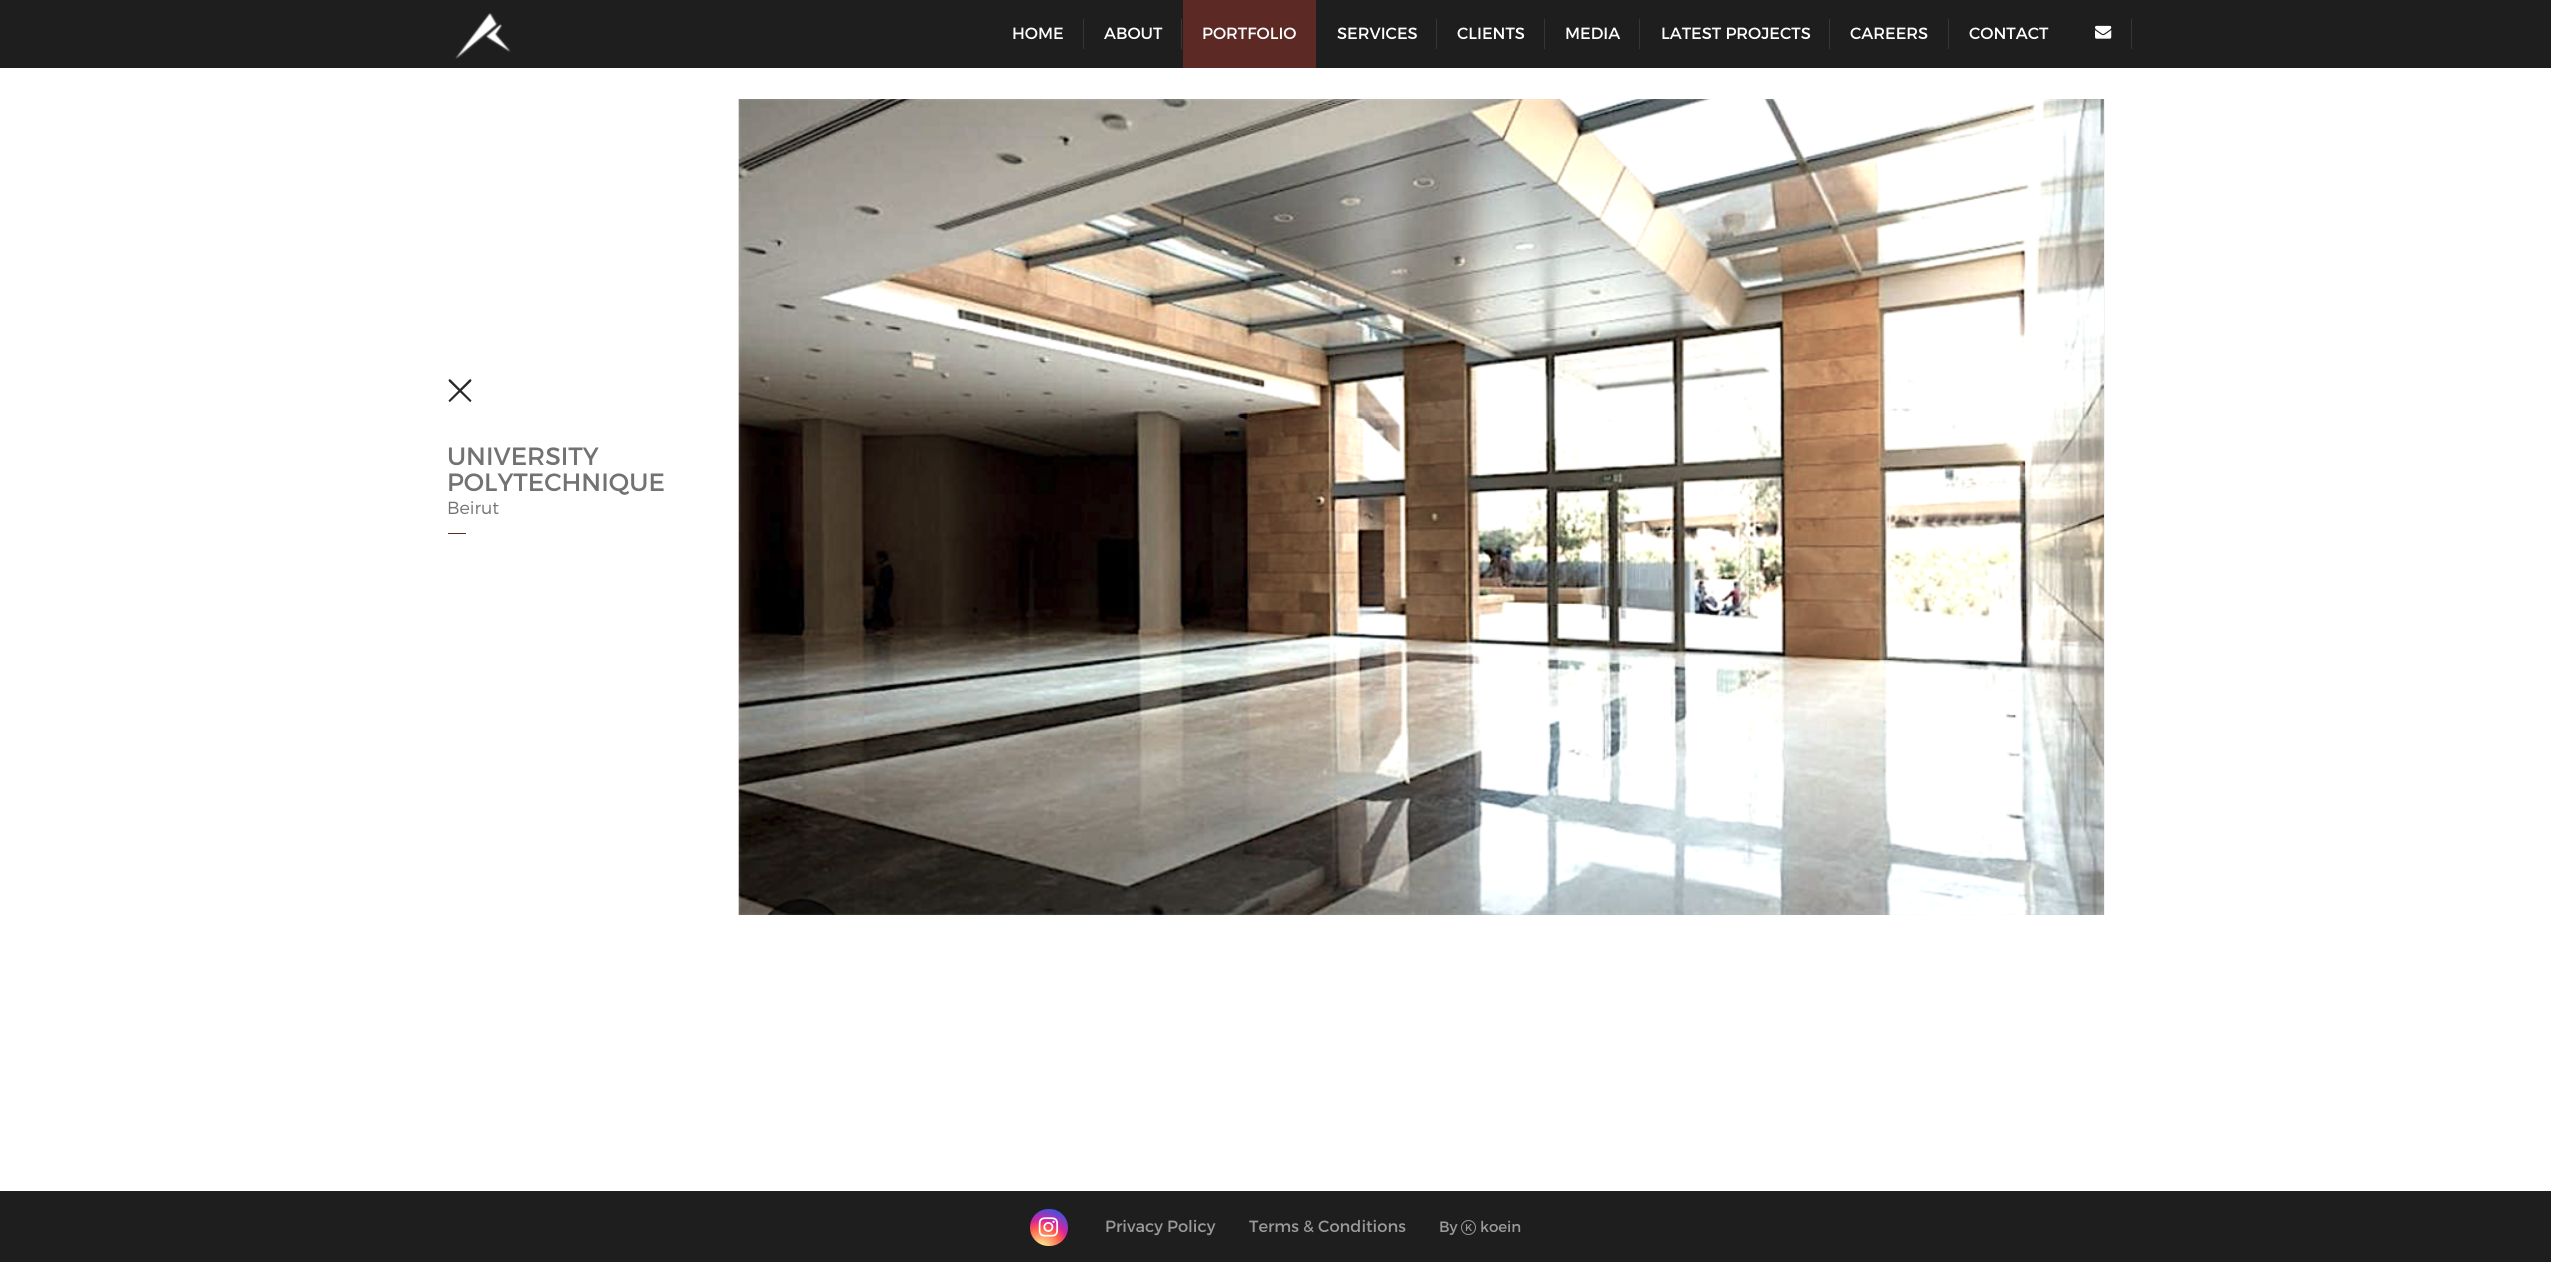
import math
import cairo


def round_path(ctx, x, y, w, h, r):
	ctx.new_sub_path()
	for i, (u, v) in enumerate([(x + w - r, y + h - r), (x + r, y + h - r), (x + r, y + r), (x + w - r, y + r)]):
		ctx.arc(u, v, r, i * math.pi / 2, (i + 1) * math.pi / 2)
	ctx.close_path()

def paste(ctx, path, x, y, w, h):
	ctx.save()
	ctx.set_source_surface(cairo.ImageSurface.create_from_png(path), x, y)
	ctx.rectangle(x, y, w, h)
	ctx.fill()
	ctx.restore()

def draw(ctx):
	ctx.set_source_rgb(1, 1, 1)
	ctx.paint()
	ctx.set_source_rgb(0.118, 0.118, 0.118)
	ctx.rectangle(0, 0, 2551, 68)
	ctx.fill()
	paste(ctx, 'media/1.png', 455, 13, 56, 46)
	ctx.select_font_face('Montserrat')
	ctx.set_font_size(16.25)
	ctx.set_source_rgb(1, 1, 1)
	ctx.move_to(1012, 39)
	ctx.show_text('HOME')
	ctx.set_source_rgb(0.212, 0.212, 0.212)
	ctx.rectangle(1083, 19, 1, 30)
	ctx.fill()
	ctx.set_source_rgb(1, 1, 1)
	ctx.move_to(1104, 39)
	ctx.show_text('ABOUT')
	ctx.set_source_rgb(0.212, 0.212, 0.212)
	ctx.rectangle(1181, 19, 1, 30)
	ctx.fill()
	ctx.set_source_rgb(0.361, 0.161, 0.145)
	ctx.rectangle(1183, 0, 133, 68)
	ctx.fill()
	ctx.set_source_rgb(1, 1, 1)
	ctx.move_to(1202, 39)
	ctx.show_text('PORTFOLIO')
	ctx.move_to(1337, 39)
	ctx.show_text('SERVICES')
	ctx.set_source_rgb(0.212, 0.212, 0.212)
	ctx.rectangle(1436, 19, 1, 30)
	ctx.fill()
	ctx.set_source_rgb(1, 1, 1)
	ctx.move_to(1457, 39)
	ctx.show_text('CLIENTS')
	ctx.set_source_rgb(0.212, 0.212, 0.212)
	ctx.rectangle(1544, 19, 1, 30)
	ctx.fill()
	ctx.set_source_rgb(1, 1, 1)
	ctx.move_to(1565, 39)
	ctx.show_text('MEDIA')
	ctx.set_source_rgb(0.212, 0.212, 0.212)
	ctx.rectangle(1639, 19, 1, 30)
	ctx.fill()
	ctx.set_source_rgb(1, 1, 1)
	ctx.move_to(1661, 39)
	ctx.show_text('LATEST PROJECTS')
	ctx.set_source_rgb(0.212, 0.212, 0.212)
	ctx.rectangle(1829, 19, 1, 30)
	ctx.fill()
	ctx.set_source_rgb(1, 1, 1)
	ctx.move_to(1850, 39)
	ctx.show_text('CAREERS')
	ctx.set_source_rgb(0.212, 0.212, 0.212)
	ctx.rectangle(1948, 19, 1, 30)
	ctx.fill()
	ctx.set_source_rgb(1, 1, 1)
	ctx.move_to(1969, 39)
	ctx.show_text('CONTACT')
	paste(ctx, 'media/2.png', 2095, 25, 17, 14)
	ctx.set_source_rgb(0.212, 0.212, 0.212)
	ctx.rectangle(2131, 19, 1, 30)
	ctx.fill()
	ctx.set_source_rgb(0.161, 0.161, 0.161)
	ctx.new_path()
	ctx.move_to(471, 379.5)
	ctx.curve_to(471.5, 380, 471.5, 381, 471, 381.5)
	ctx.line_to(450.5, 401.5)
	ctx.curve_to(450, 402, 449.5, 402, 449, 401.5)
	ctx.curve_to(448.5, 401, 448.5, 400.5, 449, 400)
	ctx.line_to(469.5, 379.5)
	ctx.curve_to(470, 379, 470.5, 379, 471, 379.5)
	ctx.close_path()
	ctx.fill()
	ctx.new_path()
	ctx.move_to(449, 379.5)
	ctx.curve_to(449.5, 379, 450, 379, 450.5, 379.5)
	ctx.line_to(471, 400)
	ctx.curve_to(471.5, 400.5, 471.5, 401, 471, 401.5)
	ctx.curve_to(470.5, 402, 470, 402, 469.5, 401.5)
	ctx.line_to(449, 381.5)
	ctx.curve_to(448.5, 381, 448.5, 380, 449, 379.5)
	ctx.close_path()
	ctx.fill()
	ctx.set_font_size(25)
	ctx.set_source_rgb(0.447, 0.447, 0.447)
	ctx.move_to(447, 465)
	ctx.show_text('UNIVERSITY')
	ctx.move_to(447, 491)
	ctx.show_text('POLYTECHNIQUE')
	ctx.select_font_face('Montserrat Light')
	ctx.set_font_size(17.5)
	ctx.move_to(447, 514)
	ctx.show_text('Beirut')
	ctx.set_source_rgb(0.361, 0.161, 0.145)
	ctx.rectangle(448, 533, 18, 1)
	ctx.fill()
	ctx.set_source_rgb(0.953, 0.953, 0.953)
	ctx.rectangle(738, 99, 1367, 816)
	ctx.fill()
	paste(ctx, 'media/3.png', 738, 99, 1366, 816)
	ctx.set_source_rgb(0.118, 0.118, 0.118)
	ctx.rectangle(0, 1191, 2551, 71)
	ctx.fill()
	gradient = cairo.RadialGradient(1041, 1249, 0, 1041, 1249, 48)
	gradient.add_color_stop_rgba(0, 0.992, 0.957, 0.592, 1)
	gradient.add_color_stop_rgba(0.05, 0.992, 0.957, 0.592, 1)
	gradient.add_color_stop_rgba(0.45, 0.992, 0.349, 0.286, 1)
	gradient.add_color_stop_rgba(0.6, 0.839, 0.141, 0.624, 1)
	gradient.add_color_stop_rgba(0.9, 0.157, 0.353, 0.922, 1)
	ctx.set_source(gradient)
	round_path(ctx, 1030, 1209, 38, 37, 18.5)
	ctx.fill()
	paste(ctx, 'media/4.png', 1038, 1217, 21, 20)
	ctx.select_font_face('Montserrat')
	ctx.set_font_size(16.25)
	ctx.set_source_rgb(0.6, 0.6, 0.6)
	ctx.move_to(1105, 1232)
	ctx.show_text('Privacy Policy')
	ctx.move_to(1249, 1232)
	ctx.show_text('Terms & Conditions')
	ctx.set_font_size(15)
	ctx.move_to(1439, 1232)
	ctx.show_text('By')
	ctx.new_path()
	ctx.arc(1468.5, 1227.5, 7, 0, 2 * math.pi)
	ctx.set_line_width(1)
	ctx.stroke()
	ctx.set_font_size(10)
	ctx.move_to(1465, 1231)
	ctx.show_text('K')
	ctx.set_font_size(15)
	ctx.move_to(1480, 1232)
	ctx.show_text('koein')


surface = cairo.ImageSurface(cairo.FORMAT_RGB24, 2551, 1262)
ctx = cairo.Context(surface)
options = cairo.FontOptions()
options.set_hint_metrics(cairo.HINT_METRICS_OFF)
options.set_hint_style(cairo.HINT_STYLE_NONE)
ctx.set_font_options(options)
ctx.set_miter_limit(4)
draw(ctx)
surface.write_to_png('image.png')
